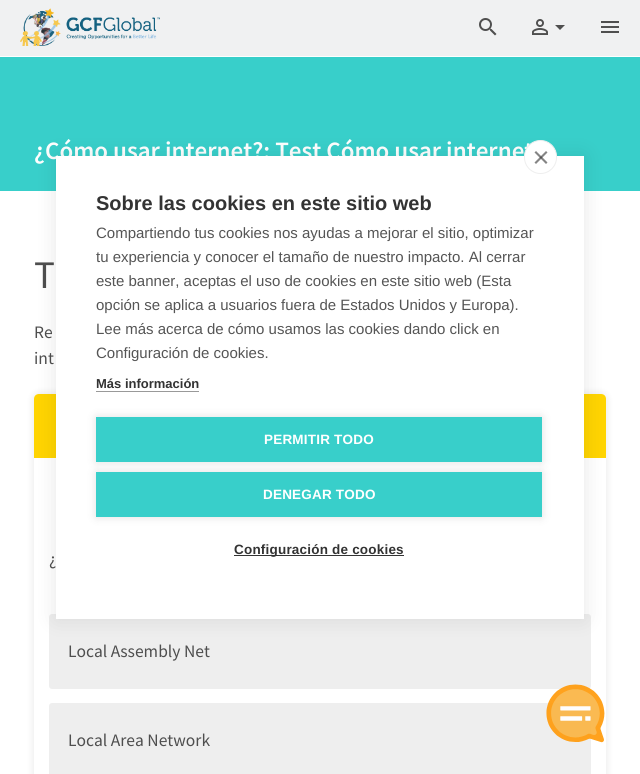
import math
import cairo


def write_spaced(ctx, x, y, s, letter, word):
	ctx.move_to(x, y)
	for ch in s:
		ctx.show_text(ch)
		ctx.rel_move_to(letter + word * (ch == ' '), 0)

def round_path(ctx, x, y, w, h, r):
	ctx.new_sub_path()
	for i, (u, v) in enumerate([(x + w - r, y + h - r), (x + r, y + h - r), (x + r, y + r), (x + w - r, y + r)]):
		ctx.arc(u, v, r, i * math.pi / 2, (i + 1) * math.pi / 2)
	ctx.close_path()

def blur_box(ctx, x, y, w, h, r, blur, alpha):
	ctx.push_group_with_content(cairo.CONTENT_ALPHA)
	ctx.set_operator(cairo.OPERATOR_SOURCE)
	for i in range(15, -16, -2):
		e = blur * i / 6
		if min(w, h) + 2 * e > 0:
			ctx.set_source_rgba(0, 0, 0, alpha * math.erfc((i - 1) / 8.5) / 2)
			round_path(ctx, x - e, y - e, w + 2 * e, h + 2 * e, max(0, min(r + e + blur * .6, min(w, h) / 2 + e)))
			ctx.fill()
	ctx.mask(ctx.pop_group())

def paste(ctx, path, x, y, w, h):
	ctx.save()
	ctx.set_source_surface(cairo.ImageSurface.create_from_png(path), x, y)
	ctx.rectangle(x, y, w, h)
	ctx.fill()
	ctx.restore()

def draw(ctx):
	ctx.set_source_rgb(1, 1, 1)
	ctx.paint()
	ctx.set_source_rgb(0.941, 0.945, 0.949)
	ctx.rectangle(0, 0, 640, 56)
	ctx.fill()
	paste(ctx, 'media/1.png', 20, 8, 140, 38)
	paste(ctx, 'media/2.png', 479, 18, 18, 18)
	paste(ctx, 'media/3.png', 532, 19, 16, 16)
	ctx.set_source_rgb(0.31, 0.31, 0.31)
	ctx.new_path()
	ctx.move_to(555, 25)
	ctx.line_to(565, 25)
	ctx.line_to(560, 30)
	ctx.close_path()
	ctx.fill()
	paste(ctx, 'media/4.png', 601, 21, 18, 12)
	ctx.set_source_rgb(0.22, 0.812, 0.792)
	ctx.rectangle(0, 57, 640, 134)
	ctx.fill()
	ctx.select_font_face('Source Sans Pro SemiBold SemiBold')
	ctx.set_font_size(25)
	ctx.set_source_rgb(1, 1, 1)
	ctx.move_to(34, 159)
	ctx.show_text('¿Cómo usar internet?: Test Cómo usar internet')
	ctx.select_font_face('Source Sans Pro')
	ctx.set_font_size(39)
	ctx.set_source_rgb(0.306, 0.306, 0.306)
	write_spaced(ctx, 34, 288, 'T', -1, 0)
	ctx.set_font_size(17.5)
	ctx.move_to(34, 338)
	ctx.show_text('Re')
	ctx.move_to(34, 364)
	ctx.show_text('int')
	ctx.save()
	ctx.set_fill_rule(cairo.FILL_RULE_EVEN_ODD)
	ctx.new_path()
	ctx.move_to(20, 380)
	ctx.line_to(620, 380)
	ctx.line_to(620, 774)
	ctx.line_to(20, 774)
	ctx.close_path()
	ctx.move_to(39, 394)
	ctx.line_to(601, 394)
	ctx.curve_to(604, 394, 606, 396, 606, 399)
	ctx.line_to(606, 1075)
	ctx.curve_to(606, 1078, 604, 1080, 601, 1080)
	ctx.line_to(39, 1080)
	ctx.curve_to(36, 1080, 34, 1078, 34, 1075)
	ctx.line_to(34, 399)
	ctx.curve_to(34, 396, 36, 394, 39, 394)
	ctx.close_path()
	ctx.clip()
	ctx.set_source_rgb(0, 0, 0)
	blur_box(ctx, 33, 393, 574, 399, 6, 4, 0.08)
	ctx.restore()
	ctx.set_source_rgb(1, 0.831, 0.004)
	ctx.new_path()
	ctx.move_to(39, 394)
	ctx.line_to(601, 394)
	ctx.curve_to(604, 394, 606, 396, 606, 399)
	ctx.line_to(606, 458)
	ctx.line_to(34, 458)
	ctx.line_to(34, 399)
	ctx.curve_to(34, 396, 36, 394, 39, 394)
	ctx.close_path()
	ctx.fill()
	ctx.set_source_rgb(0.306, 0.306, 0.306)
	ctx.move_to(49, 565)
	ctx.show_text('¿')
	ctx.set_source_rgb(0.933, 0.933, 0.933)
	round_path(ctx, 51, 616, 538, 71, 1)
	ctx.fill_preserve()
	ctx.set_line_width(4)
	ctx.stroke()
	ctx.set_source_rgb(0.306, 0.306, 0.306)
	ctx.move_to(68, 657)
	ctx.show_text('Local Assembly Net')
	ctx.set_source_rgb(0.933, 0.933, 0.933)
	round_path(ctx, 51, 705, 538, 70, 1)
	ctx.fill_preserve()
	ctx.stroke()
	ctx.set_source_rgb(0.306, 0.306, 0.306)
	ctx.move_to(68, 746)
	ctx.show_text('Local Area Network')
	ctx.set_source_rgb(0, 0, 0)
	blur_box(ctx, 56, 156, 528, 463, 0, 10, 0.1)
	ctx.set_source_rgb(1, 1, 1)
	ctx.rectangle(56, 156, 528, 463)
	ctx.fill()
	round_path(ctx, 524.5, 140.5, 32, 33, 16)
	ctx.fill_preserve()
	ctx.set_source_rgb(0.933, 0.933, 0.933)
	ctx.set_line_width(1)
	ctx.stroke()
	ctx.set_source_rgb(0.522, 0.522, 0.522)
	ctx.new_path()
	ctx.move_to(534.5, 162.5)
	ctx.line_to(546, 151)
	ctx.line_to(547.5, 152.5)
	ctx.line_to(536, 164)
	ctx.close_path()
	ctx.fill()
	ctx.set_source_rgba(0.2, 0.2, 0.2, 0.6)
	ctx.new_path()
	ctx.move_to(536, 151)
	ctx.line_to(547.5, 162.5)
	ctx.line_to(546, 164)
	ctx.line_to(534.5, 152.5)
	ctx.close_path()
	ctx.fill()
	ctx.select_font_face('Liberation Sans', cairo.FONT_SLANT_NORMAL, cairo.FONT_WEIGHT_BOLD)
	ctx.set_font_size(20)
	ctx.set_source_rgb(0.2, 0.2, 0.2)
	ctx.move_to(96, 210)
	ctx.show_text('Sobre las cookies en este sitio web')
	ctx.select_font_face('Liberation Sans')
	ctx.set_font_size(15)
	ctx.set_source_rgb(0.333, 0.333, 0.333)
	for x, y, s in [
		(96, 238, 'Compartiendo tus cookies nos ayudas a mejorar el sitio, optimizar'),
		(96, 262, 'tu experiencia y conocer el tamaño de nuestro impacto. Al cerrar'),
		(96, 286, 'este banner, aceptas el uso de cookies en este sitio web (Esta'),
		(96, 310, 'opción se aplica a usuarios fuera de Estados Unidos y Europa).'),
		(96, 334, 'Lee más acerca de cómo usamos las cookies dando click en'),
		(96, 358, 'Configuración de cookies.'),
	]:
		ctx.move_to(x, y)
		ctx.show_text(s)
	ctx.select_font_face('Liberation Sans', cairo.FONT_SLANT_NORMAL, cairo.FONT_WEIGHT_BOLD)
	ctx.set_font_size(13)
	ctx.set_source_rgb(0.2, 0.2, 0.2)
	ctx.move_to(96, 388)
	ctx.show_text('Más información')
	ctx.set_source_rgb(0.6, 0.6, 0.6)
	ctx.rectangle(96, 391, 103, 1)
	ctx.fill()
	ctx.set_source_rgb(0, 0, 0)
	blur_box(ctx, 96, 417, 446, 45, 0, 5, 0.12)
	ctx.set_source_rgb(0.22, 0.812, 0.792)
	ctx.rectangle(96, 417, 446, 45)
	ctx.fill()
	ctx.set_font_size(13.5)
	ctx.set_source_rgb(1, 1, 1)
	write_spaced(ctx, 264, 444, 'PERMITIR TODO', 0.2, 0)
	ctx.set_source_rgb(0, 0, 0)
	blur_box(ctx, 96, 472, 446, 45, 0, 5, 0.12)
	ctx.set_source_rgb(0.22, 0.812, 0.792)
	ctx.rectangle(96, 472, 446, 45)
	ctx.fill()
	ctx.set_source_rgb(1, 1, 1)
	write_spaced(ctx, 263, 499, 'DENEGAR TODO', 0.2, 0)
	ctx.set_source_rgb(0.2, 0.2, 0.2)
	ctx.rectangle(234, 555, 170, 1)
	ctx.fill()
	write_spaced(ctx, 234, 554, 'Configuración de cookies', 0.2, 0)
	paste(ctx, 'media/5.png', 546, 684, 59, 59)


surface = cairo.ImageSurface(cairo.FORMAT_RGB24, 640, 774)
ctx = cairo.Context(surface)
options = cairo.FontOptions()
options.set_hint_metrics(cairo.HINT_METRICS_OFF)
options.set_hint_style(cairo.HINT_STYLE_NONE)
ctx.set_font_options(options)
ctx.set_miter_limit(4)
draw(ctx)
surface.write_to_png('image.png')
